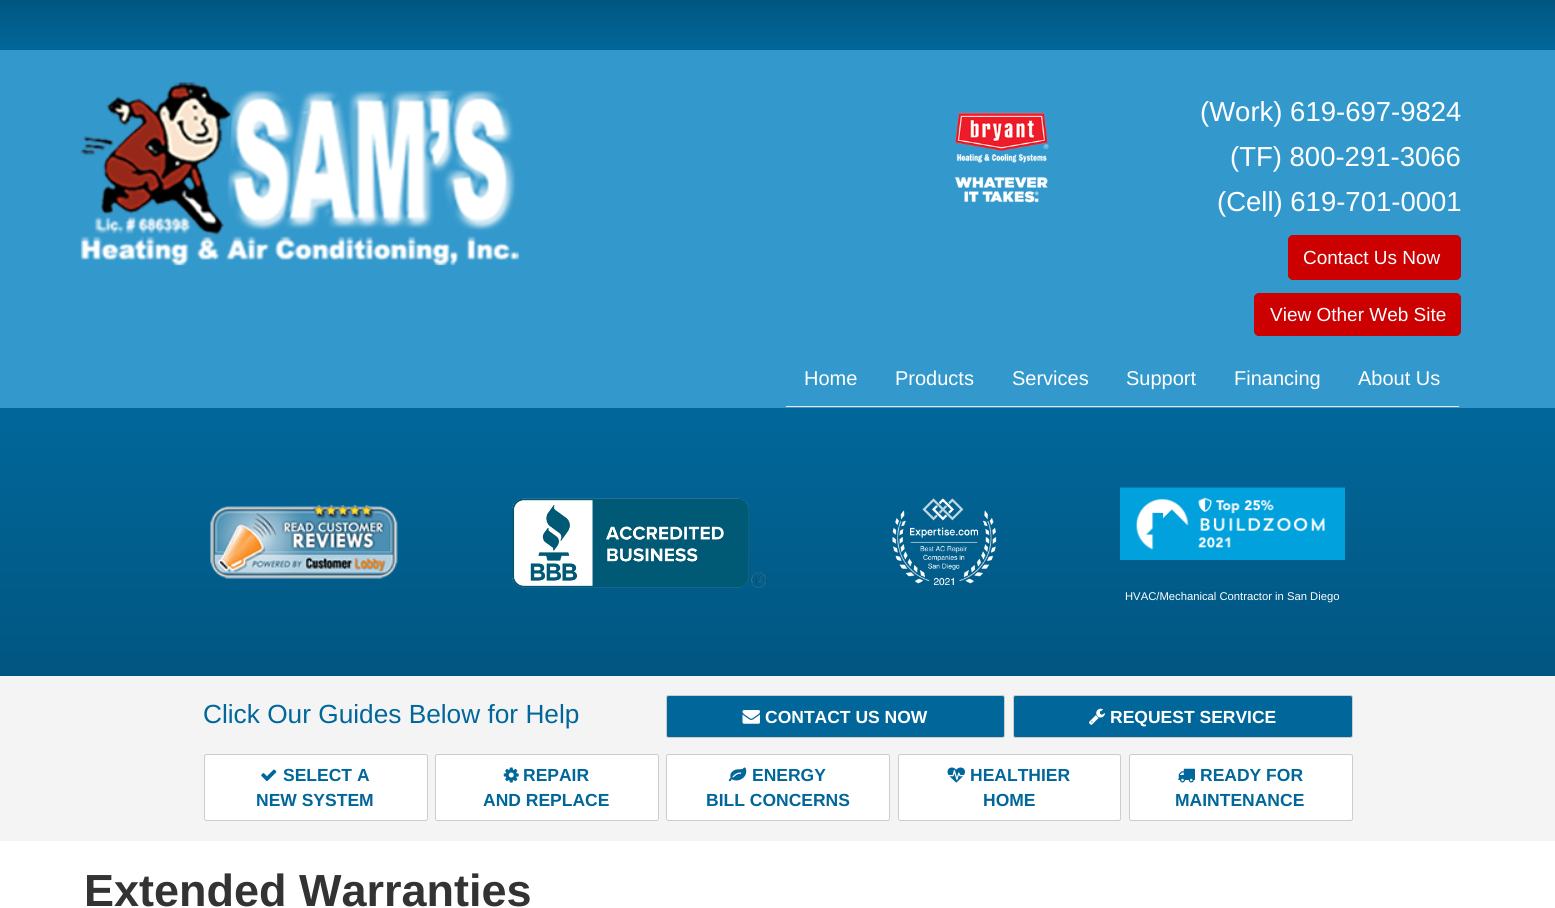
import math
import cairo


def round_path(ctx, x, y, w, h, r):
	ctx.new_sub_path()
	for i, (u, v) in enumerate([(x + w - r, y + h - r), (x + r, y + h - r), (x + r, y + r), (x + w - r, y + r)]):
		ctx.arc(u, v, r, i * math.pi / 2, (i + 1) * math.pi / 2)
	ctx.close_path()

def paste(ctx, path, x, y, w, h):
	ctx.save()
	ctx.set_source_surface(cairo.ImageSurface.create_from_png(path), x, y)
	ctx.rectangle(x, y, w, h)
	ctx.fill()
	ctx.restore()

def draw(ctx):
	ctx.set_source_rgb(1, 1, 1)
	ctx.paint()
	ctx.set_source_rgb(0.2, 0.6, 0.8)
	ctx.rectangle(0, 50, 1555, 358)
	ctx.fill()
	gradient = cairo.LinearGradient(778, 0, 778, 50)
	gradient.add_color_stop_rgba(0, 0.004, 0.337, 0.506, 1)
	gradient.add_color_stop_rgba(1, 0.004, 0.404, 0.604, 1)
	ctx.set_source(gradient)
	ctx.rectangle(0, 0, 1555, 50)
	ctx.fill()
	paste(ctx, 'media/1.png', 79, 82, 440, 184)
	paste(ctx, 'media/2.png', 954, 112, 95, 91)
	ctx.select_font_face('Arimo')
	ctx.set_font_size(27.5)
	ctx.set_source_rgb(1, 1, 1)
	for x, y, s in [
		(1200, 121, '(Work) 619-697-9824'),
		(1230, 166, '(TF) 800-291-3066'),
		(1217, 211, '(Cell) 619-701-0001'),
	]:
		ctx.move_to(x, y)
		ctx.show_text(s)
	ctx.set_source_rgb(0.8, 0, 0)
	round_path(ctx, 1288.5, 235.5, 172, 44, 4.5)
	ctx.fill_preserve()
	ctx.set_line_width(1)
	ctx.stroke()
	ctx.set_font_size(19)
	ctx.set_source_rgb(1, 1, 1)
	ctx.move_to(1303, 264)
	ctx.show_text('Contact Us Now')
	ctx.set_source_rgb(0.8, 0, 0)
	round_path(ctx, 1254.5, 293.5, 206, 42, 4.5)
	ctx.fill_preserve()
	ctx.stroke()
	ctx.set_source_rgb(1, 1, 1)
	ctx.move_to(1270, 321)
	ctx.show_text('View Other Web Site')
	ctx.set_source_rgb(0.906, 0.906, 0.906)
	ctx.rectangle(786, 406, 673, 1)
	ctx.fill()
	ctx.set_font_size(20)
	ctx.set_source_rgb(1, 1, 1)
	for x, y, s in [
		(804, 385, 'Home'),
		(895, 385, 'Products'),
		(1012, 385, 'Services'),
		(1126, 385, 'Support'),
		(1234, 385, 'Financing'),
		(1358, 385, 'About Us'),
	]:
		ctx.move_to(x, y)
		ctx.show_text(s)
	gradient = cairo.LinearGradient(778, 676, 778, 408)
	gradient.add_color_stop_rgba(0, 0.004, 0.337, 0.506, 1)
	gradient.add_color_stop_rgba(1, 0.004, 0.404, 0.604, 1)
	ctx.set_source(gradient)
	ctx.rectangle(0, 408, 1555, 268)
	ctx.fill()
	paste(ctx, 'media/3.png', 210, 505, 188, 74)
	paste(ctx, 'media/4.png', 512, 498, 255, 90)
	paste(ctx, 'media/5.png', 892, 498, 105, 88)
	paste(ctx, 'media/6.png', 1120, 487, 225, 73)
	ctx.select_font_face('Liberation Sans')
	ctx.set_font_size(11.25)
	ctx.set_source_rgb(1, 1, 1)
	ctx.move_to(1125, 600)
	ctx.show_text('HVAC/Mechanical Contractor in San Diego')
	ctx.set_source_rgb(0.957, 0.957, 0.957)
	ctx.rectangle(0, 676, 1555, 165)
	ctx.fill()
	ctx.select_font_face('Arimo')
	ctx.set_font_size(26.25)
	ctx.set_source_rgb(0.004, 0.404, 0.604)
	ctx.move_to(203, 723)
	ctx.show_text('Click Our Guides Below for Help')
	round_path(ctx, 666.5, 695.5, 338, 42, 2)
	ctx.fill_preserve()
	ctx.set_source_rgb(0.8, 0.8, 0.8)
	ctx.stroke()
	paste(ctx, 'media/7.png', 742, 710, 18, 14)
	ctx.select_font_face('Arimo', cairo.FONT_SLANT_NORMAL, cairo.FONT_WEIGHT_BOLD)
	ctx.set_font_size(17.5)
	ctx.set_source_rgb(1, 1, 1)
	ctx.move_to(765, 723)
	ctx.show_text('CONTACT US NOW')
	ctx.set_source_rgb(0.004, 0.404, 0.604)
	round_path(ctx, 1013.5, 695.5, 339, 42, 2)
	ctx.fill_preserve()
	ctx.set_source_rgb(0.8, 0.8, 0.8)
	ctx.stroke()
	paste(ctx, 'media/8.png', 1089, 708, 16, 17)
	ctx.set_source_rgb(1, 1, 1)
	ctx.move_to(1110, 723)
	ctx.show_text('REQUEST SERVICE')
	round_path(ctx, 204.5, 754.5, 223, 66, 2)
	ctx.fill_preserve()
	ctx.set_source_rgb(0.8, 0.8, 0.8)
	ctx.stroke()
	paste(ctx, 'media/9.png', 261, 769, 16, 13)
	ctx.set_source_rgb(0.004, 0.404, 0.604)
	ctx.move_to(283, 781)
	ctx.show_text('SELECT A')
	ctx.move_to(256, 806)
	ctx.show_text('NEW SYSTEM')
	ctx.set_source_rgb(1, 1, 1)
	round_path(ctx, 435.5, 754.5, 223, 66, 2)
	ctx.fill_preserve()
	ctx.set_source_rgb(0.8, 0.8, 0.8)
	ctx.stroke()
	paste(ctx, 'media/10.png', 503, 767, 16, 16)
	ctx.set_source_rgb(0.004, 0.404, 0.604)
	ctx.move_to(523, 781)
	ctx.show_text('REPAIR')
	ctx.move_to(483, 806)
	ctx.show_text('AND REPLACE')
	ctx.set_source_rgb(1, 1, 1)
	round_path(ctx, 666.5, 754.5, 223, 66, 2)
	ctx.fill_preserve()
	ctx.set_source_rgb(0.8, 0.8, 0.8)
	ctx.stroke()
	paste(ctx, 'media/11.png', 728, 767, 19, 15)
	ctx.set_source_rgb(0.004, 0.404, 0.604)
	ctx.move_to(752, 781)
	ctx.show_text('ENERGY')
	ctx.move_to(706, 806)
	ctx.show_text('BILL CONCERNS')
	ctx.set_source_rgb(1, 1, 1)
	round_path(ctx, 898.5, 754.5, 222, 66, 2)
	ctx.fill_preserve()
	ctx.set_source_rgb(0.8, 0.8, 0.8)
	ctx.stroke()
	paste(ctx, 'media/12.png', 947, 767, 18, 16)
	ctx.set_source_rgb(0.004, 0.404, 0.604)
	ctx.move_to(970, 781)
	ctx.show_text('HEALTHIER')
	ctx.move_to(983, 806)
	ctx.show_text('HOME')
	ctx.set_source_rgb(1, 1, 1)
	round_path(ctx, 1129.5, 754.5, 223, 66, 2)
	ctx.fill_preserve()
	ctx.set_source_rgb(0.8, 0.8, 0.8)
	ctx.stroke()
	paste(ctx, 'media/13.png', 1178, 768, 17, 15)
	ctx.set_source_rgb(0.004, 0.404, 0.604)
	ctx.move_to(1200, 781)
	ctx.show_text('READY FOR')
	ctx.move_to(1175, 806)
	ctx.show_text('MAINTENANCE')
	ctx.set_font_size(45)
	ctx.set_source_rgb(0.2, 0.2, 0.2)
	ctx.move_to(84, 906)
	ctx.show_text('Extended Warranties')


surface = cairo.ImageSurface(cairo.FORMAT_RGB24, 1555, 908)
ctx = cairo.Context(surface)
options = cairo.FontOptions()
options.set_hint_metrics(cairo.HINT_METRICS_OFF)
options.set_hint_style(cairo.HINT_STYLE_NONE)
ctx.set_font_options(options)
ctx.set_miter_limit(4)
draw(ctx)
surface.write_to_png('image.png')
